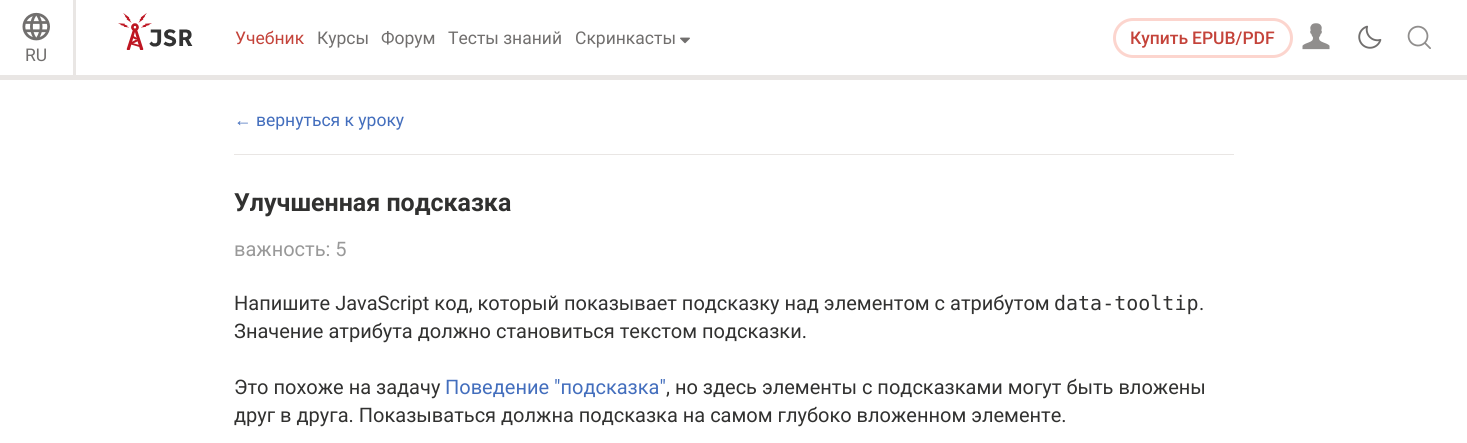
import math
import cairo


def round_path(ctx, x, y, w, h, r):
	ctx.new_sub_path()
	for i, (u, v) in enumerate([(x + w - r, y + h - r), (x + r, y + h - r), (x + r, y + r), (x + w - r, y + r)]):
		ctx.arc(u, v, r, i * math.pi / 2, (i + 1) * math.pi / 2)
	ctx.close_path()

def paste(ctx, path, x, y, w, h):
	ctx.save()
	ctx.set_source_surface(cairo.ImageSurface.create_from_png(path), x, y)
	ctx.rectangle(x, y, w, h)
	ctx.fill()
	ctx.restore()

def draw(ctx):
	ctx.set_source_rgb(1, 1, 1)
	ctx.paint()
	ctx.set_source_rgb(0.914, 0.902, 0.894)
	ctx.rectangle(0, 75, 1467, 5)
	ctx.fill()
	paste(ctx, 'media/1.png', 118, 13, 75, 37)
	ctx.select_font_face('Roboto')
	ctx.set_font_size(17.5)
	ctx.set_source_rgb(0.769, 0.263, 0.227)
	ctx.move_to(235, 44)
	ctx.show_text('Учебник')
	ctx.set_source_rgb(0.443, 0.435, 0.431)
	for x, y, s in [
		(317, 44, 'Курсы'),
		(381, 44, 'Форум'),
		(448, 44, 'Тесты знаний'),
		(575, 44, 'Скринкасты'),
	]:
		ctx.move_to(x, y)
		ctx.show_text(s)
	paste(ctx, 'media/2.png', 680, 37, 10, 7)
	round_path(ctx, 1114.5, 19.5, 177, 37, 18.5)
	ctx.set_source_rgb(0.988, 0.835, 0.808)
	ctx.set_line_width(3)
	ctx.stroke()
	ctx.select_font_face('Roboto Medium')
	ctx.set_source_rgb(0.769, 0.263, 0.227)
	ctx.move_to(1130, 44)
	ctx.show_text('Купить')
	ctx.move_to(1192, 44)
	ctx.show_text('EPUB/PDF')
	paste(ctx, 'media/3.png', 1302, 23, 28, 27)
	paste(ctx, 'media/4.png', 1358, 25, 24, 24)
	paste(ctx, 'media/5.png', 1407, 25, 24, 24)
	ctx.set_source_rgb(0.914, 0.902, 0.894)
	ctx.rectangle(73, 0, 3, 75)
	ctx.fill()
	paste(ctx, 'media/6.png', 22, 12, 28, 29)
	ctx.select_font_face('Roboto')
	ctx.set_source_rgb(0.443, 0.435, 0.431)
	ctx.move_to(25, 61)
	ctx.show_text('RU')
	ctx.select_font_face('Liberation Sans')
	ctx.set_source_rgb(0.263, 0.431, 0.741)
	ctx.move_to(234, 126)
	ctx.show_text('←')
	ctx.select_font_face('Roboto')
	ctx.move_to(256, 126)
	ctx.show_text('вернуться к уроку')
	ctx.set_source_rgb(0.914, 0.902, 0.894)
	ctx.rectangle(234, 154, 1000, 1)
	ctx.fill()
	ctx.select_font_face('Roboto', cairo.FONT_SLANT_NORMAL, cairo.FONT_WEIGHT_BOLD)
	ctx.set_font_size(25)
	ctx.set_source_rgb(0.192, 0.192, 0.188)
	ctx.move_to(234, 211)
	ctx.show_text('Улучшенная подсказка')
	ctx.select_font_face('Roboto')
	ctx.set_font_size(20)
	ctx.set_source_rgb(0.6, 0.6, 0.6)
	ctx.move_to(234, 256)
	ctx.show_text('важность: 5')
	ctx.set_source_rgb(0.192, 0.192, 0.188)
	ctx.move_to(234, 310)
	ctx.show_text('Напишите JavaScript код, который показывает подсказку над элементом с атрибутом')
	ctx.select_font_face('DejaVu Sans Mono')
	ctx.move_to(1054, 310)
	ctx.show_text('data-tooltip')
	ctx.select_font_face('Roboto')
	for x, y, s in [
		(1199, 310, '.'),
		(234, 338, 'Значение атрибута должно становиться текстом подсказки.'),
		(234, 394, 'Это похоже на задачу'),
	]:
		ctx.move_to(x, y)
		ctx.show_text(s)
	ctx.set_source_rgb(0.263, 0.431, 0.741)
	ctx.move_to(445, 394)
	ctx.show_text('Поведение "подсказка"')
	ctx.set_source_rgb(0.192, 0.192, 0.188)
	ctx.move_to(666, 394)
	ctx.show_text(', но здесь элементы с подсказками могут быть вложены')
	ctx.move_to(234, 422)
	ctx.show_text('друг в друга. Показываться должна подсказка на самом глубоко вложенном элементе.')


surface = cairo.ImageSurface(cairo.FORMAT_RGB24, 1467, 443)
ctx = cairo.Context(surface)
options = cairo.FontOptions()
options.set_hint_metrics(cairo.HINT_METRICS_OFF)
options.set_hint_style(cairo.HINT_STYLE_NONE)
ctx.set_font_options(options)
ctx.set_miter_limit(4)
draw(ctx)
surface.write_to_png('image.png')
